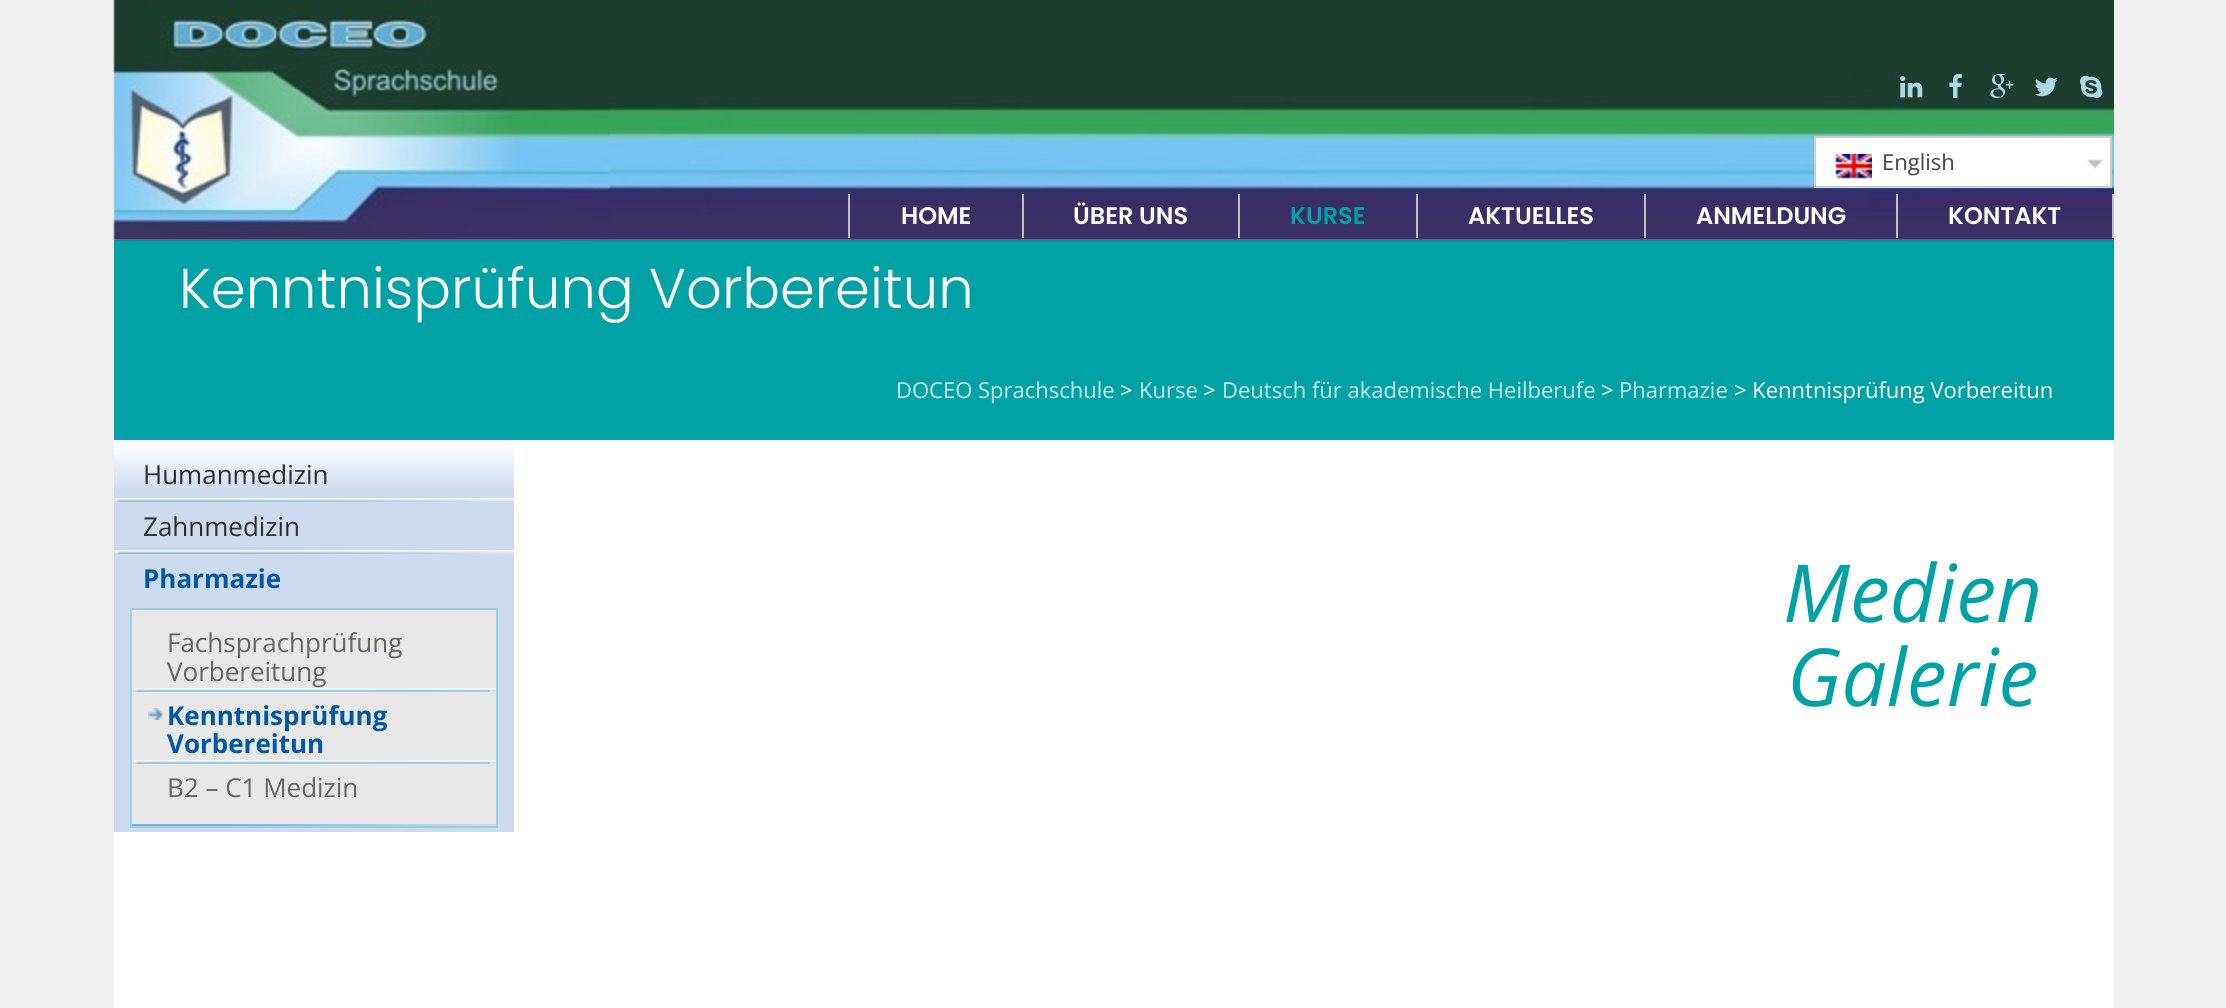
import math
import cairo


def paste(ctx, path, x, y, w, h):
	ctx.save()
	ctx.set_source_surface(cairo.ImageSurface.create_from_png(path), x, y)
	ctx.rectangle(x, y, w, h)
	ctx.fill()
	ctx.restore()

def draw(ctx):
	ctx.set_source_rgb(0.941, 0.941, 0.941)
	ctx.paint()
	ctx.set_source_rgb(1, 1, 1)
	ctx.rectangle(114, 440, 2000, 568)
	ctx.fill()
	ctx.set_source_rgb(0.004, 0.635, 0.651)
	ctx.rectangle(114, 240, 2000, 200)
	ctx.fill()
	paste(ctx, 'media/1.png', 113, 0, 2001, 241)
	paste(ctx, 'media/2.png', 1900, 76, 23, 22)
	paste(ctx, 'media/3.png', 1949, 73, 13, 26)
	paste(ctx, 'media/4.png', 1990, 73, 24, 25)
	paste(ctx, 'media/5.png', 2034, 77, 24, 20)
	paste(ctx, 'media/6.png', 2080, 75, 23, 24)
	ctx.set_source_rgb(1, 1, 1)
	ctx.rectangle(1816, 138, 294, 48)
	ctx.fill()
	paste(ctx, 'media/7.png', 2087, 159, 16, 10)
	ctx.rectangle(1815, 137, 296, 50)
	ctx.set_source_rgb(0.804, 0.804, 0.804)
	ctx.stroke()
	paste(ctx, 'media/8.png', 1835, 154, 37, 25)
	ctx.select_font_face('Open Sans')
	ctx.set_font_size(22)
	ctx.set_source_rgb(0.267, 0.267, 0.267)
	ctx.move_to(1882, 170)
	ctx.show_text('English')
	ctx.set_source_rgb(0.753, 0.753, 0.753)
	ctx.rectangle(848, 194, 2, 44)
	ctx.fill()
	ctx.rectangle(1022, 194, 2, 44)
	ctx.fill()
	ctx.select_font_face('Poppins SemiBold')
	ctx.set_font_size(24)
	ctx.set_source_rgb(1, 1, 1)
	ctx.move_to(901, 224)
	ctx.show_text('HOME')
	ctx.set_source_rgb(0.753, 0.753, 0.753)
	ctx.rectangle(1238, 194, 2, 44)
	ctx.fill()
	ctx.set_source_rgb(1, 1, 1)
	ctx.move_to(1073, 224)
	ctx.show_text('ÜBER UNS')
	ctx.set_source_rgb(0.753, 0.753, 0.753)
	ctx.rectangle(1416, 194, 2, 44)
	ctx.fill()
	ctx.set_source_rgb(0.004, 0.635, 0.651)
	ctx.move_to(1290, 224)
	ctx.show_text('KURSE')
	ctx.set_source_rgb(0.753, 0.753, 0.753)
	ctx.rectangle(1644, 194, 2, 44)
	ctx.fill()
	ctx.set_source_rgb(1, 1, 1)
	ctx.move_to(1468, 224)
	ctx.show_text('AKTUELLES')
	ctx.set_source_rgb(0.753, 0.753, 0.753)
	ctx.rectangle(1896, 194, 2, 44)
	ctx.fill()
	ctx.set_source_rgb(1, 1, 1)
	ctx.move_to(1696, 224)
	ctx.show_text('ANMELDUNG')
	ctx.set_source_rgb(0.753, 0.753, 0.753)
	ctx.rectangle(2112, 194, 2, 44)
	ctx.fill()
	ctx.set_source_rgb(1, 1, 1)
	ctx.move_to(1948, 224)
	ctx.show_text('KONTAKT')
	ctx.select_font_face('Poppins Light')
	ctx.set_font_size(56)
	ctx.move_to(179, 308)
	ctx.show_text('Kenntnisprüfung Vorbereitun')
	ctx.select_font_face('Open Sans')
	ctx.set_font_size(22)
	ctx.set_source_rgb(0.8, 0.925, 0.929)
	ctx.move_to(896, 398)
	ctx.show_text('DOCEO Sprachschule')
	ctx.set_source_rgb(1, 1, 1)
	ctx.move_to(1120, 398)
	ctx.show_text('>')
	ctx.set_source_rgb(0.8, 0.925, 0.929)
	ctx.move_to(1139, 398)
	ctx.show_text('Kurse')
	ctx.set_source_rgb(1, 1, 1)
	ctx.move_to(1203, 398)
	ctx.show_text('>')
	ctx.set_source_rgb(0.8, 0.925, 0.929)
	ctx.move_to(1222, 398)
	ctx.show_text('Deutsch für akademische Heilberufe')
	ctx.set_source_rgb(1, 1, 1)
	ctx.move_to(1601, 398)
	ctx.show_text('>')
	ctx.set_source_rgb(0.8, 0.925, 0.929)
	ctx.move_to(1619, 398)
	ctx.show_text('Pharmazie')
	ctx.set_source_rgb(1, 1, 1)
	ctx.move_to(1734, 398)
	ctx.show_text('> Kenntnisprüfung Vorbereitun')
	ctx.set_source_rgb(0.8, 0.859, 0.941)
	ctx.rectangle(114, 490, 400, 342)
	ctx.fill()
	paste(ctx, 'media/9.png', 114, 440, 400, 50)
	paste(ctx, 'media/10.png', 114, 498, 400, 4)
	ctx.set_font_size(26)
	ctx.set_source_rgb(0.192, 0.176, 0.18)
	ctx.move_to(143, 484)
	ctx.show_text('Humanmedizin')
	paste(ctx, 'media/10.png', 114, 550, 400, 4)
	ctx.move_to(143, 536)
	ctx.show_text('Zahnmedizin')
	ctx.select_font_face('Open Sans', cairo.FONT_SLANT_NORMAL, cairo.FONT_WEIGHT_BOLD)
	ctx.set_source_rgb(0.012, 0.337, 0.639)
	ctx.move_to(143, 588)
	ctx.show_text('Pharmazie')
	ctx.set_source_rgb(0.91, 0.91, 0.91)
	ctx.rectangle(132, 610, 364, 214)
	ctx.fill()
	ctx.rectangle(131, 609, 366, 218)
	ctx.set_source_rgb(0.608, 0.816, 0.886)
	ctx.stroke()
	paste(ctx, 'media/11.png', 132, 688, 364, 4)
	ctx.rectangle(148, 690, 342, 2)
	ctx.fill()
	ctx.select_font_face('Open Sans')
	ctx.set_source_rgb(0.408, 0.4, 0.376)
	ctx.move_to(167, 652)
	ctx.show_text('Fachsprachprüfung')
	ctx.move_to(167, 681)
	ctx.show_text('Vorbereitung')
	paste(ctx, 'media/11.png', 132, 760, 364, 4)
	paste(ctx, 'media/12.png', 148, 708, 15, 12)
	ctx.set_source_rgb(0.608, 0.816, 0.886)
	ctx.rectangle(148, 762, 342, 2)
	ctx.fill()
	ctx.select_font_face('Open Sans', cairo.FONT_SLANT_NORMAL, cairo.FONT_WEIGHT_BOLD)
	ctx.set_source_rgb(0.012, 0.337, 0.639)
	ctx.move_to(167, 725)
	ctx.show_text('Kenntnisprüfung')
	ctx.move_to(167, 753)
	ctx.show_text('Vorbereitun')
	paste(ctx, 'media/13.png', 132, 824, 364, 2)
	ctx.select_font_face('Open Sans')
	ctx.set_source_rgb(0.408, 0.4, 0.376)
	ctx.move_to(167, 797)
	ctx.show_text('B2 – C1 Medizin')
	ctx.select_font_face('Open Sans', cairo.FONT_SLANT_ITALIC)
	ctx.set_font_size(80)
	ctx.set_source_rgb(0.004, 0.635, 0.651)
	ctx.move_to(1783, 622)
	ctx.show_text('Medien')
	ctx.move_to(1787, 706)
	ctx.show_text('Galerie')


surface = cairo.ImageSurface(cairo.FORMAT_RGB24, 2226, 1008)
ctx = cairo.Context(surface)
options = cairo.FontOptions()
options.set_hint_metrics(cairo.HINT_METRICS_OFF)
options.set_hint_style(cairo.HINT_STYLE_NONE)
ctx.set_font_options(options)
ctx.set_miter_limit(4)
draw(ctx)
surface.write_to_png('image.png')
